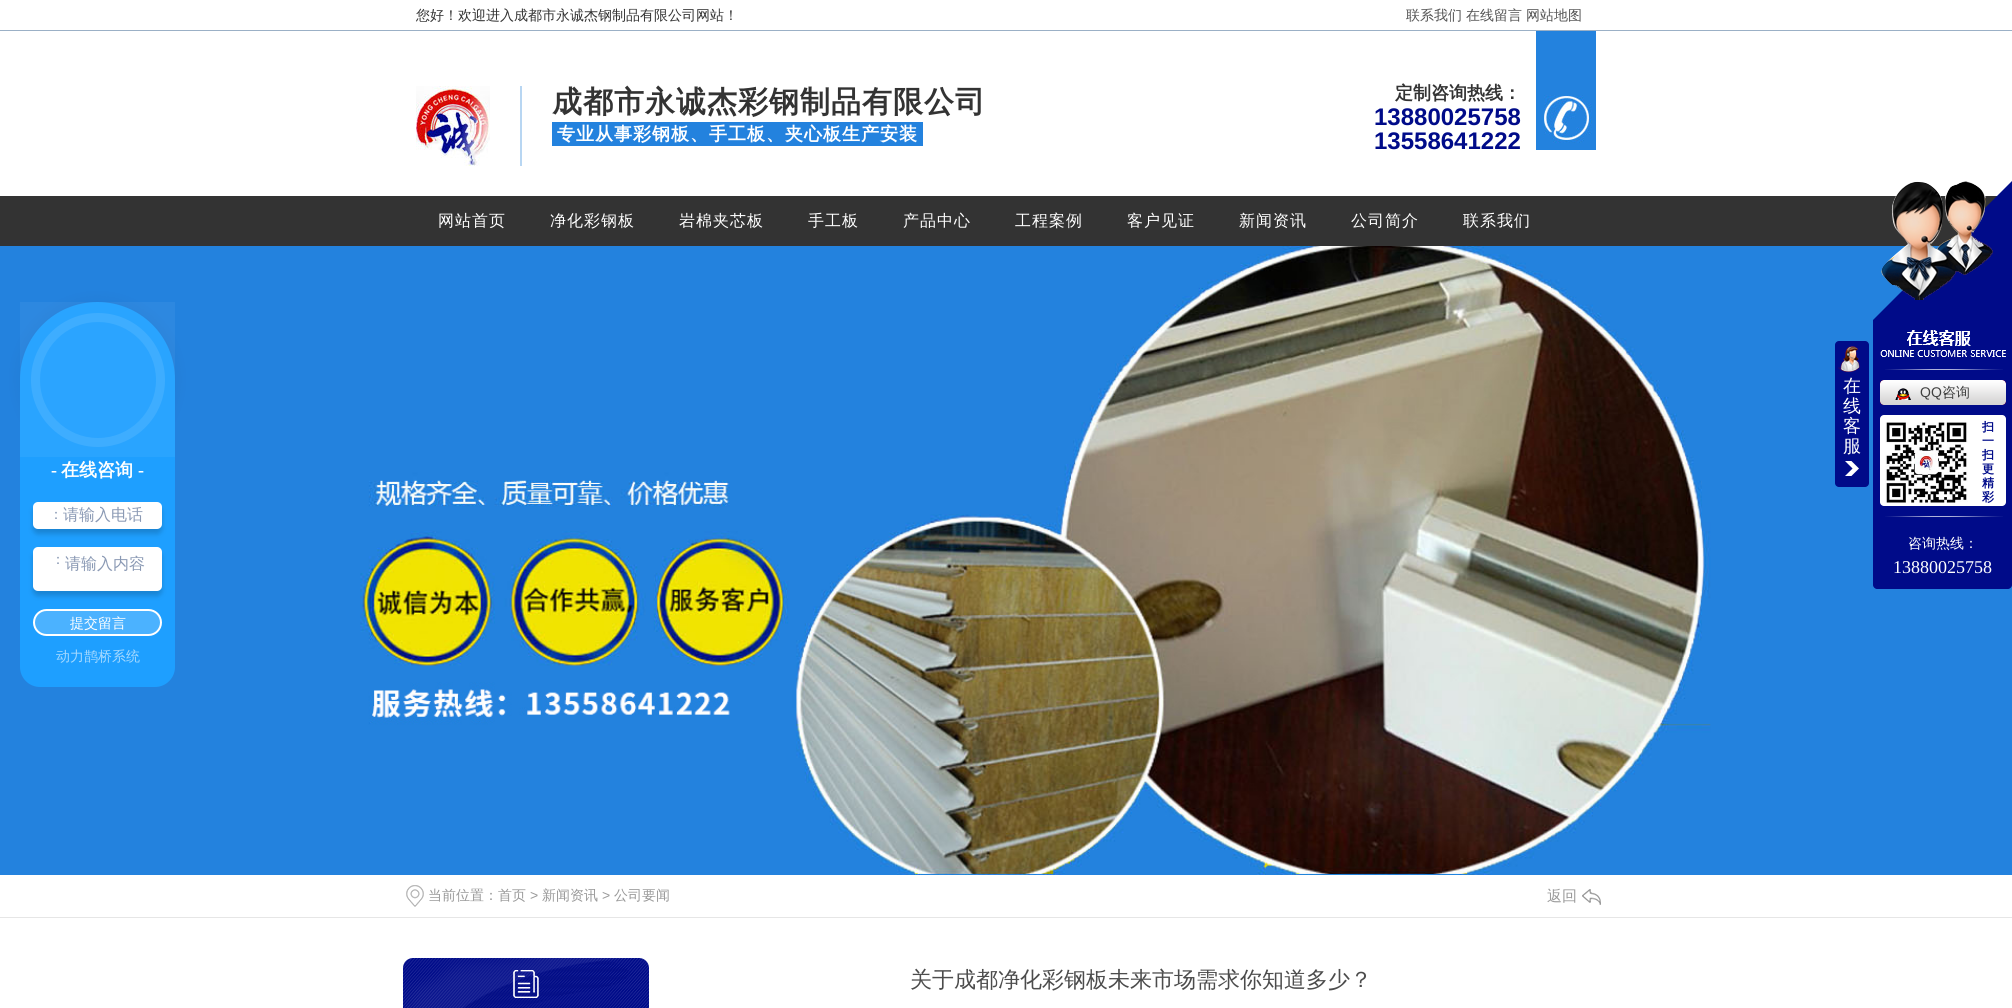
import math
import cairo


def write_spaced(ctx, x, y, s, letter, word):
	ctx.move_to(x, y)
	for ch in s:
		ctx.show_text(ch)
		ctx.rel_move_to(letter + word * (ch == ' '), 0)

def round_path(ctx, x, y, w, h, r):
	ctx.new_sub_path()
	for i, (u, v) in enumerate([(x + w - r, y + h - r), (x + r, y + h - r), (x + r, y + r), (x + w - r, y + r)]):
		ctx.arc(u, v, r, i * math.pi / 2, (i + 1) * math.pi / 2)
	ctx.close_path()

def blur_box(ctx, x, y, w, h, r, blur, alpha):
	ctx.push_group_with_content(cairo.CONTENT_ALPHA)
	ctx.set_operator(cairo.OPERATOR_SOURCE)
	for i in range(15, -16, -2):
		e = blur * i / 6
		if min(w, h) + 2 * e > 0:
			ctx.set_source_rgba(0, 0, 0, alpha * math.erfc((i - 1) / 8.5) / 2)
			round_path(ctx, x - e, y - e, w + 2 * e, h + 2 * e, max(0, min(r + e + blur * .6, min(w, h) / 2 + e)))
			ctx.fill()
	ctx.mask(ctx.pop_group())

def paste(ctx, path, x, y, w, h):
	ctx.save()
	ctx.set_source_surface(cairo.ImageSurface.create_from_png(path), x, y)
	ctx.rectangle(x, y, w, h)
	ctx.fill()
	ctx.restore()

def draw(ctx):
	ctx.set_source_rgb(1, 1, 1)
	ctx.paint()
	ctx.set_source_rgb(0.608, 0.69, 0.776)
	ctx.rectangle(0, 30, 2012, 1)
	ctx.fill()
	ctx.select_font_face('WenQuanYi Zen Hei Medium')
	ctx.set_font_size(14)
	ctx.set_source_rgb(0.2, 0.2, 0.2)
	ctx.move_to(416, 20)
	ctx.show_text('您好！欢迎进入成都市永诚杰钢制品有限公司网站！')
	ctx.set_source_rgb(0.325, 0.325, 0.325)
	for x, y, s in [
		(1406, 20, '联系我们'),
		(1466, 20, '在线留言'),
		(1526, 20, '网站地图'),
	]:
		ctx.move_to(x, y)
		ctx.show_text(s)
	ctx.set_source_rgb(0.722, 0.839, 0.949)
	ctx.rectangle(520, 86, 2, 80)
	ctx.fill()
	paste(ctx, 'media/1.png', 416, 86, 74, 80)
	ctx.select_font_face('WenQuanYi Zen Hei', cairo.FONT_SLANT_NORMAL, cairo.FONT_WEIGHT_BOLD)
	ctx.set_font_size(30)
	ctx.set_source_rgb(0.2, 0.2, 0.2)
	write_spaced(ctx, 552, 112, '成都市永诚杰彩钢制品有限公司', 1, 0)
	ctx.set_source_rgb(0.137, 0.51, 0.871)
	ctx.rectangle(552, 122, 371, 24)
	ctx.fill()
	ctx.set_font_size(18)
	ctx.set_source_rgb(1, 1, 1)
	write_spaced(ctx, 557, 140, '专业从事彩钢板、手工板、夹心板生产安装', 1, 0)
	paste(ctx, 'media/2.png', 1536, 31, 60, 119)
	ctx.set_source_rgb(0.2, 0.2, 0.2)
	ctx.move_to(1395, 99)
	ctx.show_text('定制咨询热线：')
	ctx.select_font_face('Liberation Sans', cairo.FONT_SLANT_NORMAL, cairo.FONT_WEIGHT_BOLD)
	ctx.set_font_size(24)
	ctx.set_source_rgb(0, 0.043, 0.537)
	ctx.move_to(1374, 125)
	ctx.show_text('13880025758')
	ctx.move_to(1374, 149)
	ctx.show_text('13558641222')
	ctx.set_source_rgb(0.2, 0.2, 0.2)
	ctx.rectangle(0, 196, 1997, 50)
	ctx.fill()
	ctx.select_font_face('WenQuanYi Zen Hei Medium')
	ctx.set_font_size(16)
	ctx.set_source_rgb(1, 1, 1)
	for x, y, s in [
		(438, 226, '网站首页'),
		(550, 226, '净化彩钢板'),
		(679, 226, '岩棉夹芯板'),
		(808, 226, '手工板'),
		(903, 226, '产品中心'),
		(1015, 226, '工程案例'),
		(1127, 226, '客户见证'),
		(1239, 226, '新闻资讯'),
		(1351, 226, '公司简介'),
		(1463, 226, '联系我们'),
	]:
		write_spaced(ctx, x, y, s, 1, 0)
	paste(ctx, 'media/3.png', 0, 246, 2012, 629)
	ctx.set_source_rgb(0, 0, 0)
	blur_box(ctx, 20, 302, 155, 155, 77.5, 7.5, 0.05)
	ctx.set_source_rgb(0.118, 0.624, 1)
	ctx.new_path()
	ctx.move_to(97.5, 302)
	ctx.curve_to(140.5, 302, 175, 336.5, 175, 379.5)
	ctx.line_to(175, 457)
	ctx.line_to(20, 457)
	ctx.line_to(20, 379.5)
	ctx.curve_to(20, 336.5, 54.5, 302, 97.5, 302)
	ctx.close_path()
	ctx.fill()
	ctx.set_source_rgba(1, 1, 1, 0.05)
	ctx.rectangle(20, 302, 155, 155)
	ctx.fill()
	ctx.set_source_rgba(1, 1, 1, 0.1)
	ctx.arc(98, 380, 67, 0, 2 * math.pi)
	ctx.fill()
	ctx.set_source_rgba(0.118, 0.624, 1, 0.6)
	ctx.arc(98, 380, 58, 0, 2 * math.pi)
	ctx.fill()
	ctx.set_source_rgb(0.118, 0.624, 1)
	ctx.new_path()
	ctx.move_to(20, 457)
	ctx.line_to(175, 457)
	ctx.line_to(175, 667)
	ctx.curve_to(175, 678, 166, 687, 155, 687)
	ctx.line_to(40, 687)
	ctx.curve_to(29, 687, 20, 678, 20, 667)
	ctx.close_path()
	ctx.fill()
	ctx.select_font_face('Liberation Serif', cairo.FONT_SLANT_NORMAL, cairo.FONT_WEIGHT_BOLD)
	ctx.set_font_size(18)
	ctx.set_source_rgb(1, 1, 1)
	ctx.move_to(51, 476)
	ctx.show_text('-')
	ctx.select_font_face('WenQuanYi Zen Hei', cairo.FONT_SLANT_NORMAL, cairo.FONT_WEIGHT_BOLD)
	ctx.move_to(61, 476)
	ctx.show_text('在线咨询')
	ctx.select_font_face('Liberation Serif', cairo.FONT_SLANT_NORMAL, cairo.FONT_WEIGHT_BOLD)
	ctx.move_to(138, 476)
	ctx.show_text('-')
	ctx.set_source_rgb(0, 0, 0)
	blur_box(ctx, 33, 507, 129, 27, 5, 2.5, 0.17)
	ctx.set_source_rgb(1, 1, 1)
	round_path(ctx, 33, 502, 129, 27, 5)
	ctx.fill()
	ctx.select_font_face('WenQuanYi Zen Hei Medium')
	ctx.set_font_size(14)
	ctx.set_source_rgb(0.541, 0.6, 0.706)
	ctx.move_to(49, 519)
	ctx.show_text('：')
	ctx.set_font_size(16)
	ctx.move_to(63, 520)
	ctx.show_text('请输入电话')
	ctx.set_source_rgb(0, 0, 0)
	blur_box(ctx, 33, 552, 129, 44, 5, 2.5, 0.17)
	ctx.set_source_rgb(1, 1, 1)
	round_path(ctx, 33, 547, 129, 44, 5)
	ctx.fill()
	ctx.set_font_size(14)
	ctx.set_source_rgb(0.541, 0.6, 0.706)
	ctx.move_to(51, 564)
	ctx.show_text('：')
	ctx.set_font_size(16)
	ctx.move_to(65, 569)
	ctx.show_text('请输入内容')
	ctx.set_source_rgb(0.294, 0.698, 1)
	round_path(ctx, 34, 610, 127, 25, 12.5)
	ctx.fill_preserve()
	ctx.set_source_rgb(1, 1, 1)
	ctx.stroke()
	ctx.set_font_size(14)
	ctx.move_to(70, 628)
	ctx.show_text('提交留言')
	ctx.set_source_rgb(0.647, 0.851, 1)
	ctx.move_to(56, 661)
	ctx.show_text('动力鹊桥系统')
	ctx.set_source_rgb(0, 0.043, 0.537)
	round_path(ctx, 1835, 341, 34, 146, 4)
	ctx.fill()
	paste(ctx, 'media/4.png', 1845, 461, 14, 15)
	paste(ctx, 'media/5.png', 1838, 346, 22, 26)
	ctx.set_font_size(18)
	ctx.set_source_rgb(1, 1, 1)
	for x, y, s in [
		(1843, 392, '在'),
		(1843, 412, '线'),
		(1843, 432, '客'),
		(1843, 452, '服'),
	]:
		ctx.move_to(x, y)
		ctx.show_text(s)
	ctx.set_source_rgb(0, 0.043, 0.537)
	ctx.new_path()
	ctx.move_to(2012, 181)
	ctx.line_to(1873, 320)
	ctx.line_to(2012, 320)
	ctx.close_path()
	ctx.fill()
	paste(ctx, 'media/6.png', 1881, 181, 112, 119)
	ctx.new_path()
	ctx.move_to(1873, 320)
	ctx.line_to(2012, 320)
	ctx.line_to(2012, 585)
	ctx.curve_to(2012, 587, 2010, 589, 2008, 589)
	ctx.line_to(1877, 589)
	ctx.curve_to(1875, 589, 1873, 587, 1873, 585)
	ctx.close_path()
	ctx.fill()
	paste(ctx, 'media/7.png', 1880, 330, 126, 27)
	paste(ctx, 'media/8.png', 1885, 369, 118, 1)
	paste(ctx, 'media/9.png', 1880, 380, 126, 25)
	paste(ctx, 'media/10.png', 1895, 388, 16, 12)
	ctx.select_font_face('Liberation Sans')
	ctx.set_font_size(14)
	ctx.set_source_rgb(0.251, 0.251, 0.251)
	ctx.move_to(1920, 397)
	ctx.show_text('QQ')
	ctx.select_font_face('WenQuanYi Zen Hei Medium')
	ctx.move_to(1942, 397)
	ctx.show_text('咨询')
	ctx.set_source_rgb(1, 1, 1)
	round_path(ctx, 1880, 415, 126, 91, 4)
	ctx.fill()
	paste(ctx, 'media/11.png', 1885, 422, 83, 81)
	ctx.select_font_face('WenQuanYi Zen Hei', cairo.FONT_SLANT_NORMAL, cairo.FONT_WEIGHT_BOLD)
	ctx.set_font_size(12)
	ctx.set_source_rgb(0, 0.043, 0.537)
	for x, y, s in [
		(1982, 431, '扫'),
		(1982, 445, '一'),
		(1982, 459, '扫'),
		(1982, 473, '更'),
		(1982, 487, '精'),
		(1982, 501, '彩'),
	]:
		ctx.move_to(x, y)
		ctx.show_text(s)
	paste(ctx, 'media/8.png', 1885, 516, 118, 1)
	ctx.select_font_face('WenQuanYi Zen Hei Medium')
	ctx.set_font_size(14)
	ctx.set_source_rgb(1, 1, 1)
	ctx.move_to(1908, 548)
	ctx.show_text('咨询热线：')
	ctx.select_font_face('Liberation Serif')
	ctx.set_font_size(18)
	ctx.move_to(1893, 573)
	ctx.show_text('13880025758')
	ctx.set_source_rgb(0.902, 0.902, 0.902)
	ctx.rectangle(0, 917, 2012, 1)
	ctx.fill()
	paste(ctx, 'media/12.png', 406, 885, 18, 22)
	ctx.select_font_face('WenQuanYi Zen Hei Medium')
	ctx.set_font_size(14)
	ctx.set_source_rgb(0.6, 0.6, 0.6)
	ctx.move_to(428, 900)
	ctx.show_text('当前位置：首页')
	ctx.select_font_face('Liberation Sans')
	ctx.move_to(530, 900)
	ctx.show_text('>')
	ctx.select_font_face('WenQuanYi Zen Hei Medium')
	ctx.move_to(542, 900)
	ctx.show_text('新闻资讯')
	ctx.select_font_face('Liberation Sans')
	ctx.move_to(602, 900)
	ctx.show_text('>')
	ctx.select_font_face('WenQuanYi Zen Hei Medium')
	ctx.move_to(614, 900)
	ctx.show_text('公司要闻')
	ctx.set_font_size(15)
	ctx.move_to(1547, 901)
	ctx.show_text('返回')
	paste(ctx, 'media/13.png', 1582, 889, 19, 16)
	ctx.set_source_rgb(0, 0.043, 0.537)
	ctx.new_path()
	ctx.move_to(413, 958)
	ctx.line_to(639, 958)
	ctx.curve_to(644.5, 958, 649, 962.5, 649, 968)
	ctx.line_to(649, 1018)
	ctx.line_to(403, 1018)
	ctx.line_to(403, 968)
	ctx.curve_to(403, 962.5, 407.5, 958, 413, 958)
	ctx.close_path()
	ctx.fill()
	paste(ctx, 'media/14.png', 403, 958, 246, 50)
	paste(ctx, 'media/15.png', 513, 970, 26, 28)
	ctx.set_font_size(22)
	ctx.set_source_rgb(0.298, 0.298, 0.298)
	ctx.move_to(910, 987)
	ctx.show_text('关于成都净化彩钢板未来市场需求你知道多少？')


surface = cairo.ImageSurface(cairo.FORMAT_RGB24, 2012, 1008)
ctx = cairo.Context(surface)
options = cairo.FontOptions()
options.set_hint_metrics(cairo.HINT_METRICS_OFF)
options.set_hint_style(cairo.HINT_STYLE_NONE)
ctx.set_font_options(options)
ctx.set_miter_limit(4)
draw(ctx)
surface.write_to_png('image.png')
